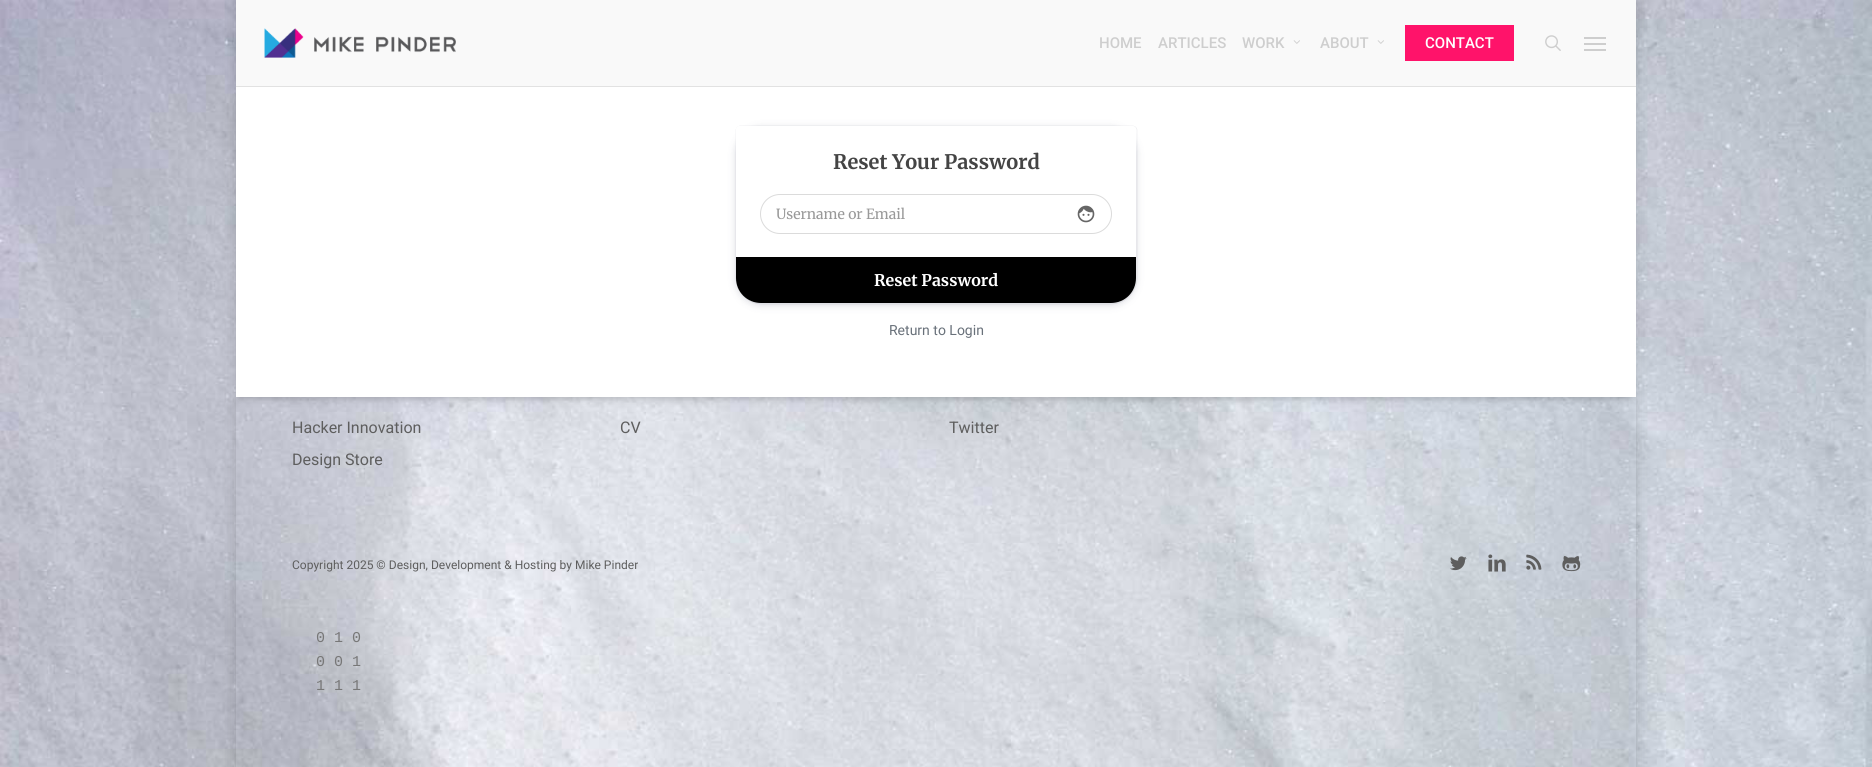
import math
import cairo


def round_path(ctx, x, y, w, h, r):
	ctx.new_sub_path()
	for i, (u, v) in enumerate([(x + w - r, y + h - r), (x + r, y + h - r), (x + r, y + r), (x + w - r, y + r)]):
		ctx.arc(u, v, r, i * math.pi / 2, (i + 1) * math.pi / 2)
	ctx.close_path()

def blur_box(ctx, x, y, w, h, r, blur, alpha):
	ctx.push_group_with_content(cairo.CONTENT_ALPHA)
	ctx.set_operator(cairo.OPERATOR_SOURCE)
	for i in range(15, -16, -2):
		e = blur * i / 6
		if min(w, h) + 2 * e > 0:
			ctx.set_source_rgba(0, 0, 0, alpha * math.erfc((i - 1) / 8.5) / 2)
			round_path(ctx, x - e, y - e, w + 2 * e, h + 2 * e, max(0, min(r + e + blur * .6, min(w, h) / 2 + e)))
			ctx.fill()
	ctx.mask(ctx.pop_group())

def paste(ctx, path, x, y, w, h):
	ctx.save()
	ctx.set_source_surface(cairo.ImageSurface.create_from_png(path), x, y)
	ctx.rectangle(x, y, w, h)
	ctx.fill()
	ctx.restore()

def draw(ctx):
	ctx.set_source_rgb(1, 1, 1)
	ctx.paint()
	paste(ctx, 'media/1.png', 0, 0, 1872, 767)
	ctx.save()
	ctx.set_fill_rule(cairo.FILL_RULE_EVEN_ODD)
	ctx.new_path()
	ctx.move_to(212, 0)
	ctx.line_to(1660, 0)
	ctx.line_to(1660, 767)
	ctx.line_to(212, 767)
	ctx.close_path()
	ctx.move_to(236, 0)
	ctx.line_to(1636, 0)
	ctx.line_to(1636, 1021)
	ctx.line_to(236, 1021)
	ctx.close_path()
	ctx.clip()
	ctx.set_source_rgb(0, 0, 0)
	blur_box(ctx, 236, 0, 1400, 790, 0, 7.5, 0.15)
	ctx.restore()
	ctx.save()
	ctx.rectangle(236, 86, 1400, 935)
	ctx.clip()
	ctx.set_source_rgb(0, 0, 0)
	blur_box(ctx, 239, 94, 1394, 305, 0, 4, 0.2)
	ctx.restore()
	ctx.set_source_rgb(0.973, 0.973, 0.973)
	ctx.rectangle(236, 0, 1400, 86)
	ctx.fill()
	ctx.set_source_rgb(0.886, 0.886, 0.886)
	ctx.rectangle(236, 86, 1400, 1)
	ctx.fill()
	paste(ctx, 'media/2.png', 264, 28, 192, 30)
	ctx.select_font_face('Roboto Medium')
	ctx.set_font_size(15)
	ctx.set_source_rgb(0.808, 0.808, 0.808)
	for x, y, s in [
		(1099, 48, 'HOME'),
		(1158, 48, 'ARTICLES'),
		(1242, 48, 'WORK'),
	]:
		ctx.move_to(x, y)
		ctx.show_text(s)
	paste(ctx, 'media/3.png', 1293, 40, 7, 4)
	ctx.move_to(1320, 48)
	ctx.show_text('ABOUT')
	paste(ctx, 'media/3.png', 1377, 40, 7, 4)
	ctx.set_source_rgb(1, 0.075, 0.416)
	ctx.rectangle(1405, 25, 109, 36)
	ctx.fill()
	ctx.set_source_rgb(1, 1, 1)
	ctx.move_to(1425, 48)
	ctx.show_text('CONTACT')
	paste(ctx, 'media/4.png', 1545, 35, 16, 16)
	ctx.set_source_rgb(0.808, 0.808, 0.808)
	ctx.rectangle(1584, 37, 22, 2)
	ctx.rectangle(1584, 49, 22, 2)
	ctx.rectangle(1584, 43, 22, 2)
	ctx.fill()
	ctx.set_source_rgb(1, 1, 1)
	ctx.rectangle(236, 87, 1400, 310)
	ctx.fill()
	ctx.set_source_rgb(0.196, 0.216, 0.353)
	blur_box(ctx, 736, 128, 400, 177, 25, 4, 0.2)
	ctx.new_path()
	ctx.move_to(740, 126)
	ctx.line_to(1133, 126)
	ctx.curve_to(1135, 126, 1137, 128, 1137, 130)
	ctx.line_to(1137, 278)
	ctx.curve_to(1137, 292, 1125, 304, 1111, 304)
	ctx.line_to(762, 304)
	ctx.curve_to(748, 304, 736, 292, 736, 278)
	ctx.line_to(736, 130)
	ctx.curve_to(736, 128, 738, 126, 740, 126)
	ctx.close_path()
	ctx.set_source_rgba(0, 0.078, 0.157, 0.1)
	ctx.set_line_width(0.5)
	ctx.stroke()
	ctx.set_source_rgb(1, 1, 1)
	ctx.new_path()
	ctx.move_to(739, 126)
	ctx.line_to(1133, 126)
	ctx.curve_to(1134.5, 126, 1136, 127.5, 1136, 129)
	ctx.line_to(1136, 278)
	ctx.curve_to(1136, 292, 1125, 303, 1111, 303)
	ctx.line_to(761, 303)
	ctx.curve_to(747, 303, 736, 292, 736, 278)
	ctx.line_to(736, 129)
	ctx.curve_to(736, 127.5, 737.5, 126, 739, 126)
	ctx.close_path()
	ctx.fill()
	ctx.select_font_face('Merriweather', cairo.FONT_SLANT_NORMAL, cairo.FONT_WEIGHT_BOLD)
	ctx.set_font_size(20)
	ctx.set_source_rgb(0.267, 0.267, 0.267)
	ctx.move_to(833, 169)
	ctx.show_text('Reset Your Password')
	round_path(ctx, 760.5, 194.5, 351, 39, 19.5)
	ctx.set_source_rgb(0.859, 0.859, 0.859)
	ctx.set_line_width(1)
	ctx.stroke()
	ctx.select_font_face('Merriweather')
	ctx.set_font_size(14)
	ctx.set_source_rgb(0.6, 0.6, 0.6)
	ctx.move_to(776, 219)
	ctx.show_text('Username or Email')
	paste(ctx, 'media/5.png', 1077, 205, 18, 18)
	ctx.set_source_rgb(0, 0, 0)
	ctx.new_path()
	ctx.move_to(736, 257)
	ctx.line_to(1136, 257)
	ctx.line_to(1136, 278)
	ctx.curve_to(1136, 292, 1125, 303, 1111, 303)
	ctx.line_to(761, 303)
	ctx.curve_to(747, 303, 736, 292, 736, 278)
	ctx.close_path()
	ctx.fill()
	ctx.select_font_face('Merriweather', cairo.FONT_SLANT_NORMAL, cairo.FONT_WEIGHT_BOLD)
	ctx.set_font_size(16)
	ctx.set_source_rgb(1, 1, 1)
	ctx.move_to(874, 286)
	ctx.show_text('Reset Password')
	ctx.select_font_face('Heebo')
	ctx.set_font_size(14)
	ctx.set_source_rgb(0.412, 0.443, 0.478)
	ctx.move_to(889, 335)
	ctx.show_text('Return to Login')
	ctx.set_font_size(16)
	ctx.set_source_rgb(0.369, 0.369, 0.369)
	for x, y, s in [
		(292, 433, 'Hacker Innovation'),
		(292, 465, 'Design Store'),
		(620, 433, 'CV'),
		(949, 433, 'Twitter'),
	]:
		ctx.move_to(x, y)
		ctx.show_text(s)
	ctx.set_font_size(12)
	ctx.move_to(292, 569)
	ctx.show_text('Copyright 2025 © Design, Development & Hosting by Mike Pinder')
	ctx.select_font_face('Liberation Mono')
	ctx.set_font_size(15)
	ctx.set_source_rgb(0.467, 0.467, 0.467)
	for x, y, s in [
		(316, 642, '0 1 0'),
		(316, 666, '0 0 1'),
		(316, 690, '1 1 1'),
	]:
		ctx.move_to(x, y)
		ctx.show_text(s)
	paste(ctx, 'media/6.png', 1450, 556, 17, 15)
	paste(ctx, 'media/7.png', 1488, 554, 18, 18)
	paste(ctx, 'media/8.png', 1526, 554, 16, 16)
	paste(ctx, 'media/9.png', 1562, 556, 19, 16)


surface = cairo.ImageSurface(cairo.FORMAT_RGB24, 1872, 767)
ctx = cairo.Context(surface)
options = cairo.FontOptions()
options.set_hint_metrics(cairo.HINT_METRICS_OFF)
options.set_hint_style(cairo.HINT_STYLE_NONE)
ctx.set_font_options(options)
ctx.set_miter_limit(4)
draw(ctx)
surface.write_to_png('image.png')
